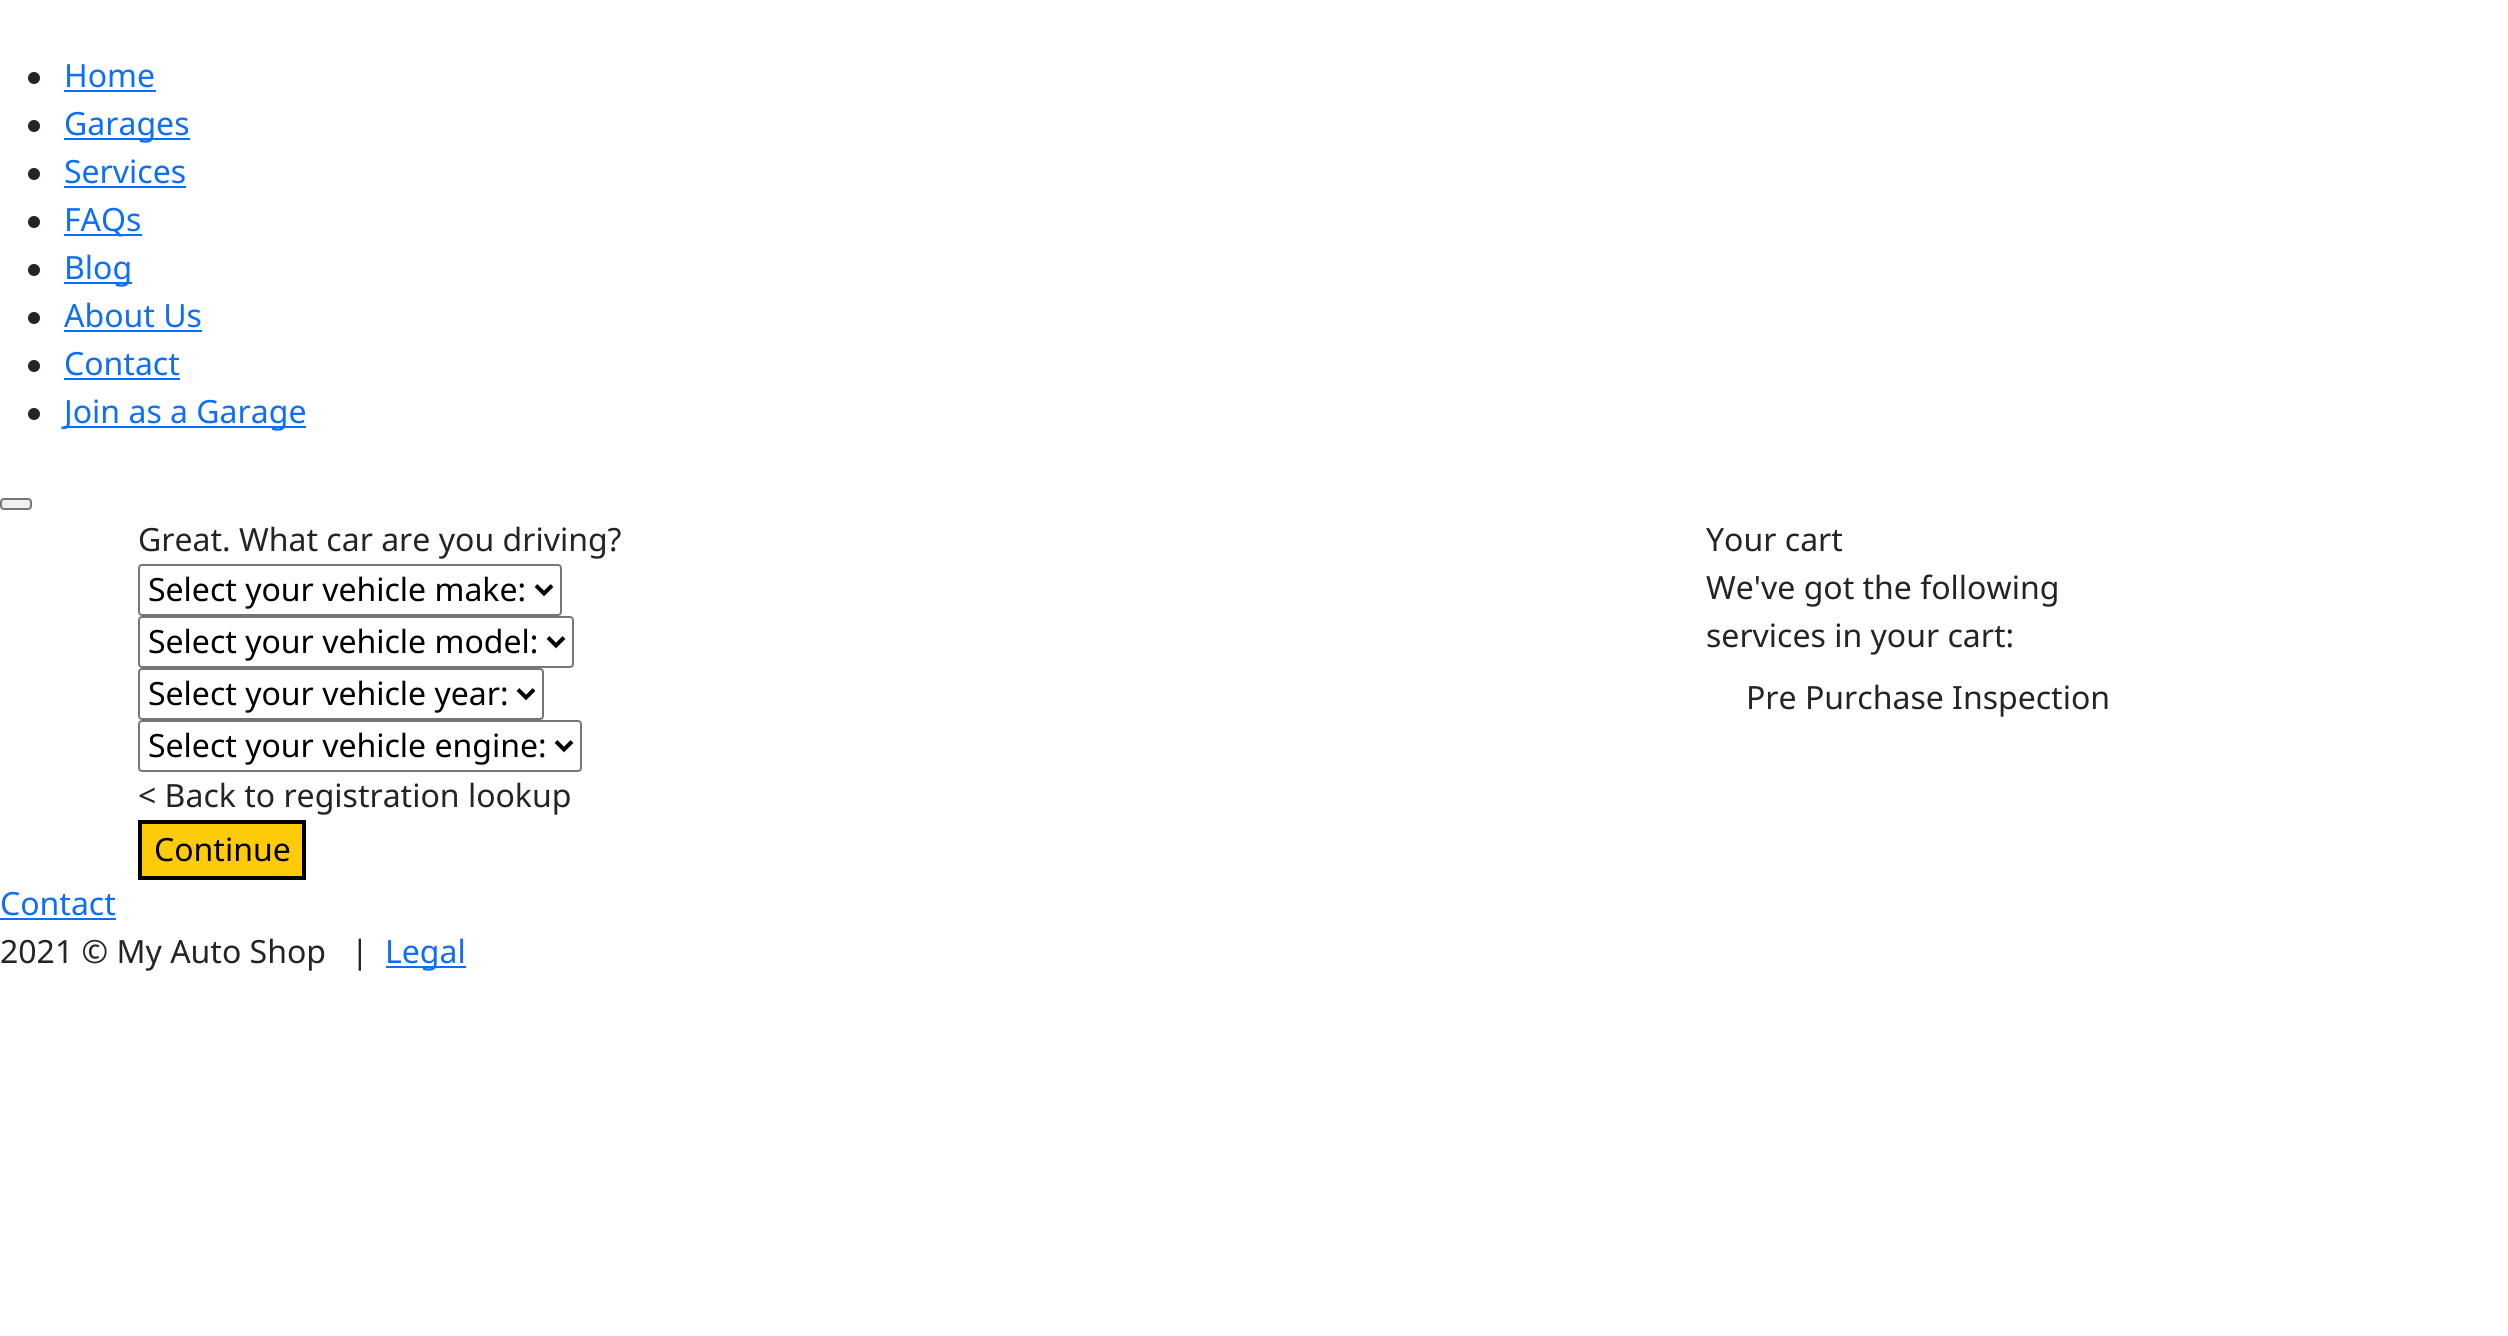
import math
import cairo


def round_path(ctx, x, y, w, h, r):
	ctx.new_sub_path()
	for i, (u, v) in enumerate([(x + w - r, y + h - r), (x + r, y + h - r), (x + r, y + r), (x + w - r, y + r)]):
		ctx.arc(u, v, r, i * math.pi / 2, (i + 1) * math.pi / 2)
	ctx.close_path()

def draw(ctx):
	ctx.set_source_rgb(1, 1, 1)
	ctx.paint()
	ctx.set_source_rgb(0.129, 0.145, 0.161)
	ctx.arc(34, 78, 6, 0, 2 * math.pi)
	ctx.fill()
	ctx.select_font_face('Noto Sans')
	ctx.set_font_size(32)
	ctx.set_source_rgb(0.051, 0.431, 0.992)
	ctx.move_to(64, 87)
	ctx.show_text('Home')
	ctx.rectangle(64, 90, 92, 2)
	ctx.fill()
	ctx.set_source_rgb(0.129, 0.145, 0.161)
	ctx.arc(34, 126, 6, 0, 2 * math.pi)
	ctx.fill()
	ctx.set_source_rgb(0.051, 0.431, 0.992)
	ctx.rectangle(64, 138, 126, 2)
	ctx.fill()
	ctx.move_to(64, 135)
	ctx.show_text('Garages')
	ctx.set_source_rgb(0.129, 0.145, 0.161)
	ctx.new_path()
	ctx.arc(34, 174, 6, 0, 2 * math.pi)
	ctx.fill()
	ctx.set_source_rgb(0.051, 0.431, 0.992)
	ctx.move_to(64, 183)
	ctx.show_text('Services')
	ctx.rectangle(64, 186, 122, 2)
	ctx.fill()
	ctx.set_source_rgb(0.129, 0.145, 0.161)
	ctx.arc(34, 222, 6, 0, 2 * math.pi)
	ctx.fill()
	ctx.set_source_rgb(0.051, 0.431, 0.992)
	ctx.rectangle(64, 234, 78, 2)
	ctx.fill()
	ctx.move_to(64, 231)
	ctx.show_text('FAQs')
	ctx.set_source_rgb(0.129, 0.145, 0.161)
	ctx.new_path()
	ctx.arc(34, 270, 6, 0, 2 * math.pi)
	ctx.fill()
	ctx.set_source_rgb(0.051, 0.431, 0.992)
	ctx.rectangle(64, 282, 68, 2)
	ctx.fill()
	ctx.move_to(64, 279)
	ctx.show_text('Blog')
	ctx.set_source_rgb(0.129, 0.145, 0.161)
	ctx.new_path()
	ctx.arc(34, 318, 6, 0, 2 * math.pi)
	ctx.fill()
	ctx.set_source_rgb(0.051, 0.431, 0.992)
	ctx.move_to(64, 327)
	ctx.show_text('About Us')
	ctx.rectangle(64, 330, 138, 2)
	ctx.fill()
	ctx.set_source_rgb(0.129, 0.145, 0.161)
	ctx.arc(34, 366, 6, 0, 2 * math.pi)
	ctx.fill()
	ctx.set_source_rgb(0.051, 0.431, 0.992)
	ctx.move_to(64, 375)
	ctx.show_text('Contact')
	ctx.rectangle(64, 378, 116, 2)
	ctx.fill()
	ctx.set_source_rgb(0.129, 0.145, 0.161)
	ctx.arc(34, 414, 6, 0, 2 * math.pi)
	ctx.fill()
	ctx.set_source_rgb(0.051, 0.431, 0.992)
	ctx.rectangle(64, 426, 242, 2)
	ctx.fill()
	ctx.move_to(64, 423)
	ctx.show_text('Join as a Garage')
	ctx.set_source_rgb(0.937, 0.937, 0.937)
	round_path(ctx, 1, 499, 30, 10, 3)
	ctx.fill_preserve()
	ctx.set_source_rgb(0.463, 0.463, 0.463)
	ctx.stroke()
	ctx.set_source_rgb(0.129, 0.145, 0.161)
	ctx.move_to(138, 551)
	ctx.show_text('Great. What car are you driving?')
	round_path(ctx, 139, 565, 422, 50, 3)
	ctx.set_source_rgb(0.463, 0.463, 0.463)
	ctx.stroke()
	ctx.new_path()
	ctx.move_to(536, 585.5)
	ctx.line_to(544, 593.5)
	ctx.line_to(552, 585.5)
	ctx.set_source_rgb(0, 0, 0)
	ctx.set_line_width(4)
	ctx.stroke()
	ctx.move_to(148, 601)
	ctx.show_text('Select your vehicle make:')
	round_path(ctx, 139, 617, 434, 50, 3)
	ctx.set_source_rgb(0.463, 0.463, 0.463)
	ctx.set_line_width(2)
	ctx.stroke()
	ctx.new_path()
	ctx.move_to(548, 637.5)
	ctx.line_to(556, 645.5)
	ctx.line_to(564, 637.5)
	ctx.set_source_rgb(0, 0, 0)
	ctx.set_line_width(4)
	ctx.stroke()
	ctx.move_to(148, 653)
	ctx.show_text('Select your vehicle model:')
	round_path(ctx, 139, 669, 404, 50, 3)
	ctx.set_source_rgb(0.463, 0.463, 0.463)
	ctx.set_line_width(2)
	ctx.stroke()
	ctx.new_path()
	ctx.move_to(518, 689.5)
	ctx.line_to(526, 697.5)
	ctx.line_to(534, 689.5)
	ctx.set_source_rgb(0, 0, 0)
	ctx.set_line_width(4)
	ctx.stroke()
	ctx.move_to(148, 705)
	ctx.show_text('Select your vehicle year:')
	round_path(ctx, 139, 721, 442, 50, 3)
	ctx.set_source_rgb(0.463, 0.463, 0.463)
	ctx.set_line_width(2)
	ctx.stroke()
	ctx.new_path()
	ctx.move_to(556, 741.5)
	ctx.line_to(564, 749.5)
	ctx.line_to(572, 741.5)
	ctx.set_source_rgb(0, 0, 0)
	ctx.set_line_width(4)
	ctx.stroke()
	ctx.move_to(148, 757)
	ctx.show_text('Select your vehicle engine:')
	ctx.set_source_rgb(0.129, 0.145, 0.161)
	ctx.move_to(138, 807)
	ctx.show_text('< Back to registration lookup')
	ctx.set_source_rgb(0.996, 0.796, 0.039)
	ctx.rectangle(140, 822, 164, 56)
	ctx.fill_preserve()
	ctx.set_source_rgb(0, 0, 0)
	ctx.stroke()
	ctx.move_to(154, 861)
	ctx.show_text('Continue')
	ctx.set_source_rgb(0.129, 0.145, 0.161)
	for x, y, s in [
		(1706, 551, 'Your cart'),
		(1706, 599, 'We\'ve got the following'),
		(1706, 647, 'services in your cart:'),
		(1746, 709, 'Pre Purchase Inspection'),
	]:
		ctx.move_to(x, y)
		ctx.show_text(s)
	ctx.set_source_rgb(0.051, 0.431, 0.992)
	ctx.move_to(0, 915)
	ctx.show_text('Contact')
	ctx.rectangle(0, 918, 116, 2)
	ctx.fill()
	ctx.set_source_rgb(0.129, 0.145, 0.161)
	ctx.move_to(0, 963)
	ctx.show_text('2021 © My Auto Shop   |')
	ctx.set_source_rgb(0.051, 0.431, 0.992)
	ctx.rectangle(386, 966, 80, 2)
	ctx.fill()
	ctx.move_to(385, 963)
	ctx.show_text('Legal')


surface = cairo.ImageSurface(cairo.FORMAT_RGB24, 2508, 1336)
ctx = cairo.Context(surface)
options = cairo.FontOptions()
options.set_hint_metrics(cairo.HINT_METRICS_OFF)
options.set_hint_style(cairo.HINT_STYLE_NONE)
ctx.set_font_options(options)
ctx.set_miter_limit(4)
draw(ctx)
surface.write_to_png('image.png')
